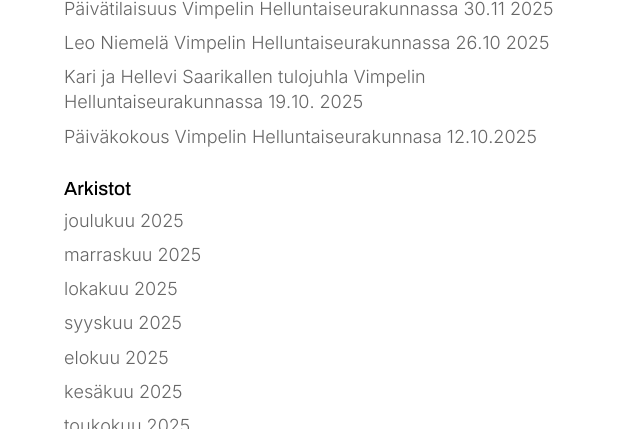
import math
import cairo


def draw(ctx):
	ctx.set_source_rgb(1, 1, 1)
	ctx.paint()
	ctx.select_font_face('Inter Light')
	ctx.set_font_size(18)
	ctx.set_source_rgb(0.4, 0.4, 0.4)
	for x, y, s in [
		(64, 15, 'Päivätilaisuus Vimpelin Helluntaiseurakunnassa 30.11 2025'),
		(64, 49, 'Leo Niemelä Vimpelin Helluntaiseurakunnassa 26.10 2025'),
		(64, 83, 'Kari ja Hellevi Saarikallen tulojuhla Vimpelin'),
		(64, 108, 'Helluntaiseurakunnassa 19.10. 2025'),
		(64, 143, 'Päiväkokous Vimpelin Helluntaiseurakunnasa 12.10.2025'),
	]:
		ctx.move_to(x, y)
		ctx.show_text(s)
	ctx.select_font_face('Archivo Medium')
	ctx.set_font_size(19)
	ctx.set_source_rgb(0, 0, 0)
	ctx.move_to(64, 195)
	ctx.show_text('Arkistot')
	ctx.select_font_face('Inter Light')
	ctx.set_font_size(18)
	ctx.set_source_rgb(0.4, 0.4, 0.4)
	for x, y, s in [
		(64, 227, 'joulukuu 2025'),
		(64, 261, 'marraskuu 2025'),
		(64, 295, 'lokakuu 2025'),
		(64, 329, 'syyskuu 2025'),
		(64, 364, 'elokuu 2025'),
		(64, 398, 'kesäkuu 2025'),
		(64, 432, 'toukokuu 2025'),
	]:
		ctx.move_to(x, y)
		ctx.show_text(s)


surface = cairo.ImageSurface(cairo.FORMAT_RGB24, 638, 429)
ctx = cairo.Context(surface)
options = cairo.FontOptions()
options.set_hint_metrics(cairo.HINT_METRICS_OFF)
options.set_hint_style(cairo.HINT_STYLE_NONE)
ctx.set_font_options(options)
ctx.set_miter_limit(4)
draw(ctx)
surface.write_to_png('image.png')
